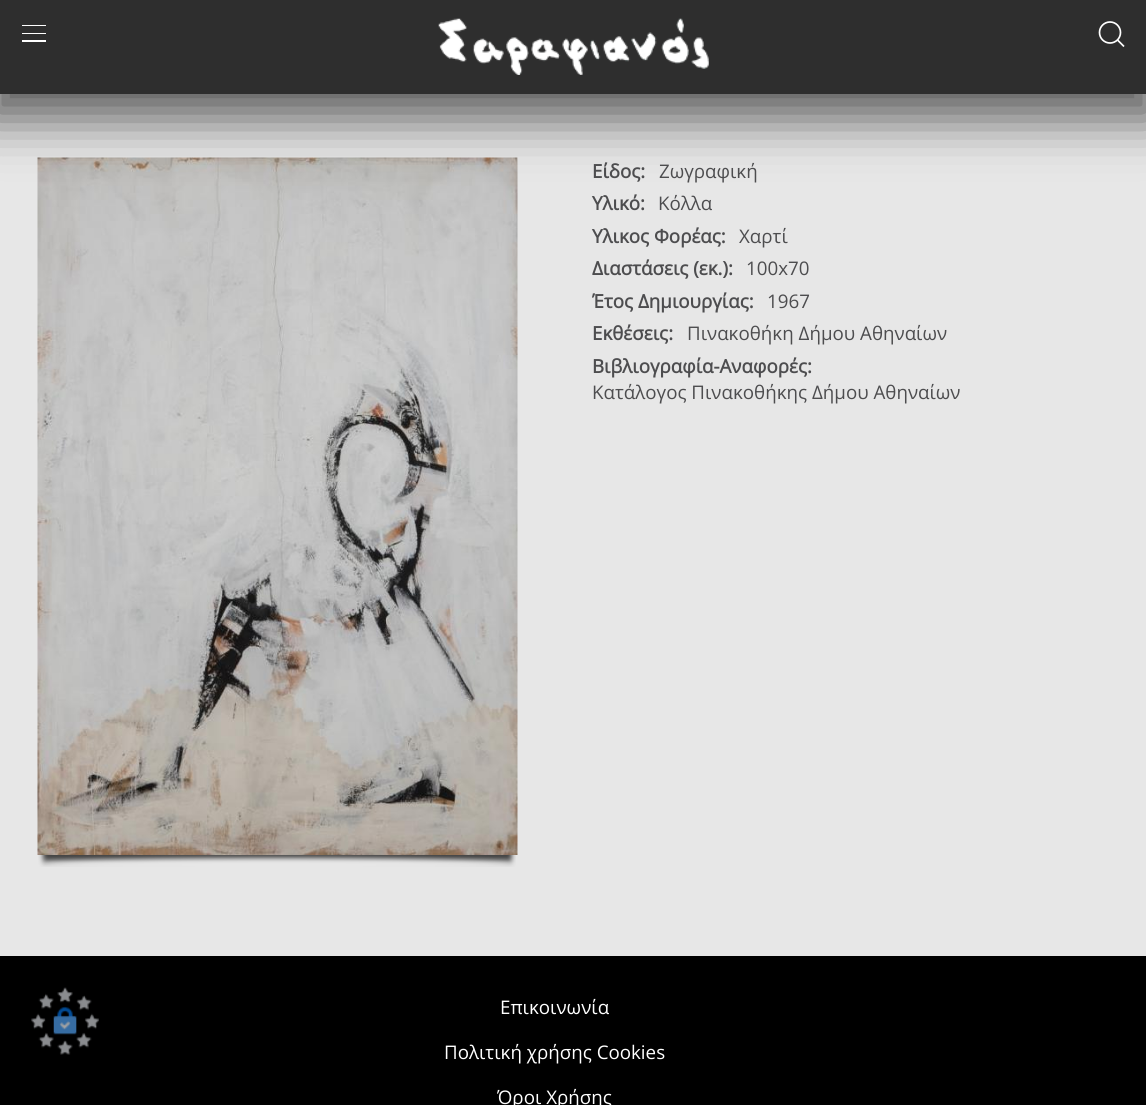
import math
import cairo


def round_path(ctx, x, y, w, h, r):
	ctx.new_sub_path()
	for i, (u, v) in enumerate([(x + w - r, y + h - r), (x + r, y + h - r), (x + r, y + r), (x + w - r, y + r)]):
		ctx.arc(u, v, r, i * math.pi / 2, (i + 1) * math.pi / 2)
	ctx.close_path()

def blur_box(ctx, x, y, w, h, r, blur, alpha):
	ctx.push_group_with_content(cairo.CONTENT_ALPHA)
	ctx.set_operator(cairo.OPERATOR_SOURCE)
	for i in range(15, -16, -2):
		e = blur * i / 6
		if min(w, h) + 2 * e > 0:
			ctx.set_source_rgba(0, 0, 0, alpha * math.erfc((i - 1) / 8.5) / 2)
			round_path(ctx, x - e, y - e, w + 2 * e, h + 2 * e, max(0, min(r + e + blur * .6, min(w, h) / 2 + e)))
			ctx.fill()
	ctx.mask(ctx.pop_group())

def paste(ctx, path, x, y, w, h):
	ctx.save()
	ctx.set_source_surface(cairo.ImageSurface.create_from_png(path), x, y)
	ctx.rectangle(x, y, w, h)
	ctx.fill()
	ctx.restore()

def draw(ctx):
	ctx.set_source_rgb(0.906, 0.906, 0.906)
	ctx.paint()
	paste(ctx, 'media/2.png', 37, 157, 481, 698)
	ctx.save()
	ctx.set_fill_rule(cairo.FILL_RULE_EVEN_ODD)
	ctx.new_path()
	ctx.move_to(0, 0)
	ctx.line_to(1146, 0)
	ctx.line_to(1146, 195)
	ctx.line_to(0, 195)
	ctx.close_path()
	ctx.move_to(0, 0)
	ctx.line_to(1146, 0)
	ctx.line_to(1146, 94)
	ctx.line_to(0, 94)
	ctx.close_path()
	ctx.clip()
	ctx.set_source_rgb(0, 0, 0)
	blur_box(ctx, -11, 5, 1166, 114, 0, 25, 0.6)
	ctx.restore()
	ctx.set_source_rgba(0, 0, 0, 0.8)
	ctx.rectangle(0, 0, 1146, 94)
	ctx.fill()
	ctx.set_source_rgb(1, 1, 1)
	ctx.rectangle(22, 25, 24, 1)
	ctx.rectangle(22, 33, 24, 1)
	ctx.rectangle(22, 40, 24, 2)
	ctx.fill()
	paste(ctx, 'media/1.png', 438, 18, 271, 57)
	ctx.arc(1110, 32.5, 10.5, 0, 2 * math.pi)
	ctx.set_line_width(1.7)
	ctx.stroke()
	ctx.new_path()
	ctx.move_to(1117.5, 40)
	ctx.line_to(1124, 46.5)
	ctx.close_path()
	ctx.stroke()
	paste(ctx, 'media/3.png', 38, 855, 478, 12)
	ctx.select_font_face('Open Sans', cairo.FONT_SLANT_NORMAL, cairo.FONT_WEIGHT_BOLD)
	ctx.set_font_size(18.75)
	ctx.set_source_rgb(0.302, 0.302, 0.31)
	ctx.move_to(592, 178)
	ctx.show_text('Είδος:')
	ctx.select_font_face('Open Sans')
	ctx.move_to(659, 178)
	ctx.show_text('Ζωγραφική')
	ctx.select_font_face('Open Sans', cairo.FONT_SLANT_NORMAL, cairo.FONT_WEIGHT_BOLD)
	ctx.move_to(592, 210)
	ctx.show_text('Υλικό:')
	ctx.select_font_face('Open Sans')
	ctx.move_to(658, 210)
	ctx.show_text('Κόλλα')
	ctx.select_font_face('Open Sans', cairo.FONT_SLANT_NORMAL, cairo.FONT_WEIGHT_BOLD)
	ctx.move_to(592, 243)
	ctx.show_text('Υλικος Φορέας:')
	ctx.select_font_face('Open Sans')
	ctx.move_to(739, 243)
	ctx.show_text('Χαρτί')
	ctx.select_font_face('Open Sans', cairo.FONT_SLANT_NORMAL, cairo.FONT_WEIGHT_BOLD)
	ctx.move_to(592, 275)
	ctx.show_text('Διαστάσεις (εκ.):')
	ctx.select_font_face('Open Sans')
	ctx.move_to(746, 275)
	ctx.show_text('100x70')
	ctx.select_font_face('Open Sans', cairo.FONT_SLANT_NORMAL, cairo.FONT_WEIGHT_BOLD)
	ctx.move_to(592, 308)
	ctx.show_text('Έτος Δημιουργίας:')
	ctx.select_font_face('Open Sans')
	ctx.move_to(767, 308)
	ctx.show_text('1967')
	ctx.select_font_face('Open Sans', cairo.FONT_SLANT_NORMAL, cairo.FONT_WEIGHT_BOLD)
	ctx.move_to(592, 340)
	ctx.show_text('Εκθέσεις:')
	ctx.select_font_face('Open Sans')
	ctx.move_to(687, 340)
	ctx.show_text('Πινακοθήκη Δήμου Αθηναίων')
	ctx.select_font_face('Open Sans', cairo.FONT_SLANT_NORMAL, cairo.FONT_WEIGHT_BOLD)
	ctx.move_to(592, 373)
	ctx.show_text('Βιβλιογραφία-Αναφορές:')
	ctx.select_font_face('Open Sans')
	ctx.move_to(592, 399)
	ctx.show_text('Κατάλογος Πινακοθήκης Δήμου Αθηναίων')
	ctx.set_source_rgb(0, 0, 0)
	ctx.rectangle(0, 956, 1146, 149)
	ctx.fill()
	paste(ctx, 'media/4.png', 31, 987, 68, 68)
	ctx.set_source_rgb(1, 1, 1)
	for x, y, s in [
		(500, 1014, 'Επικοινωνία'),
		(444, 1059, 'Πολιτική χρήσης Cookies'),
		(497, 1104, 'Όροι Χρήσης'),
	]:
		ctx.move_to(x, y)
		ctx.show_text(s)


surface = cairo.ImageSurface(cairo.FORMAT_RGB24, 1146, 1105)
ctx = cairo.Context(surface)
options = cairo.FontOptions()
options.set_hint_metrics(cairo.HINT_METRICS_OFF)
options.set_hint_style(cairo.HINT_STYLE_NONE)
ctx.set_font_options(options)
ctx.set_miter_limit(4)
draw(ctx)
surface.write_to_png('image.png')
